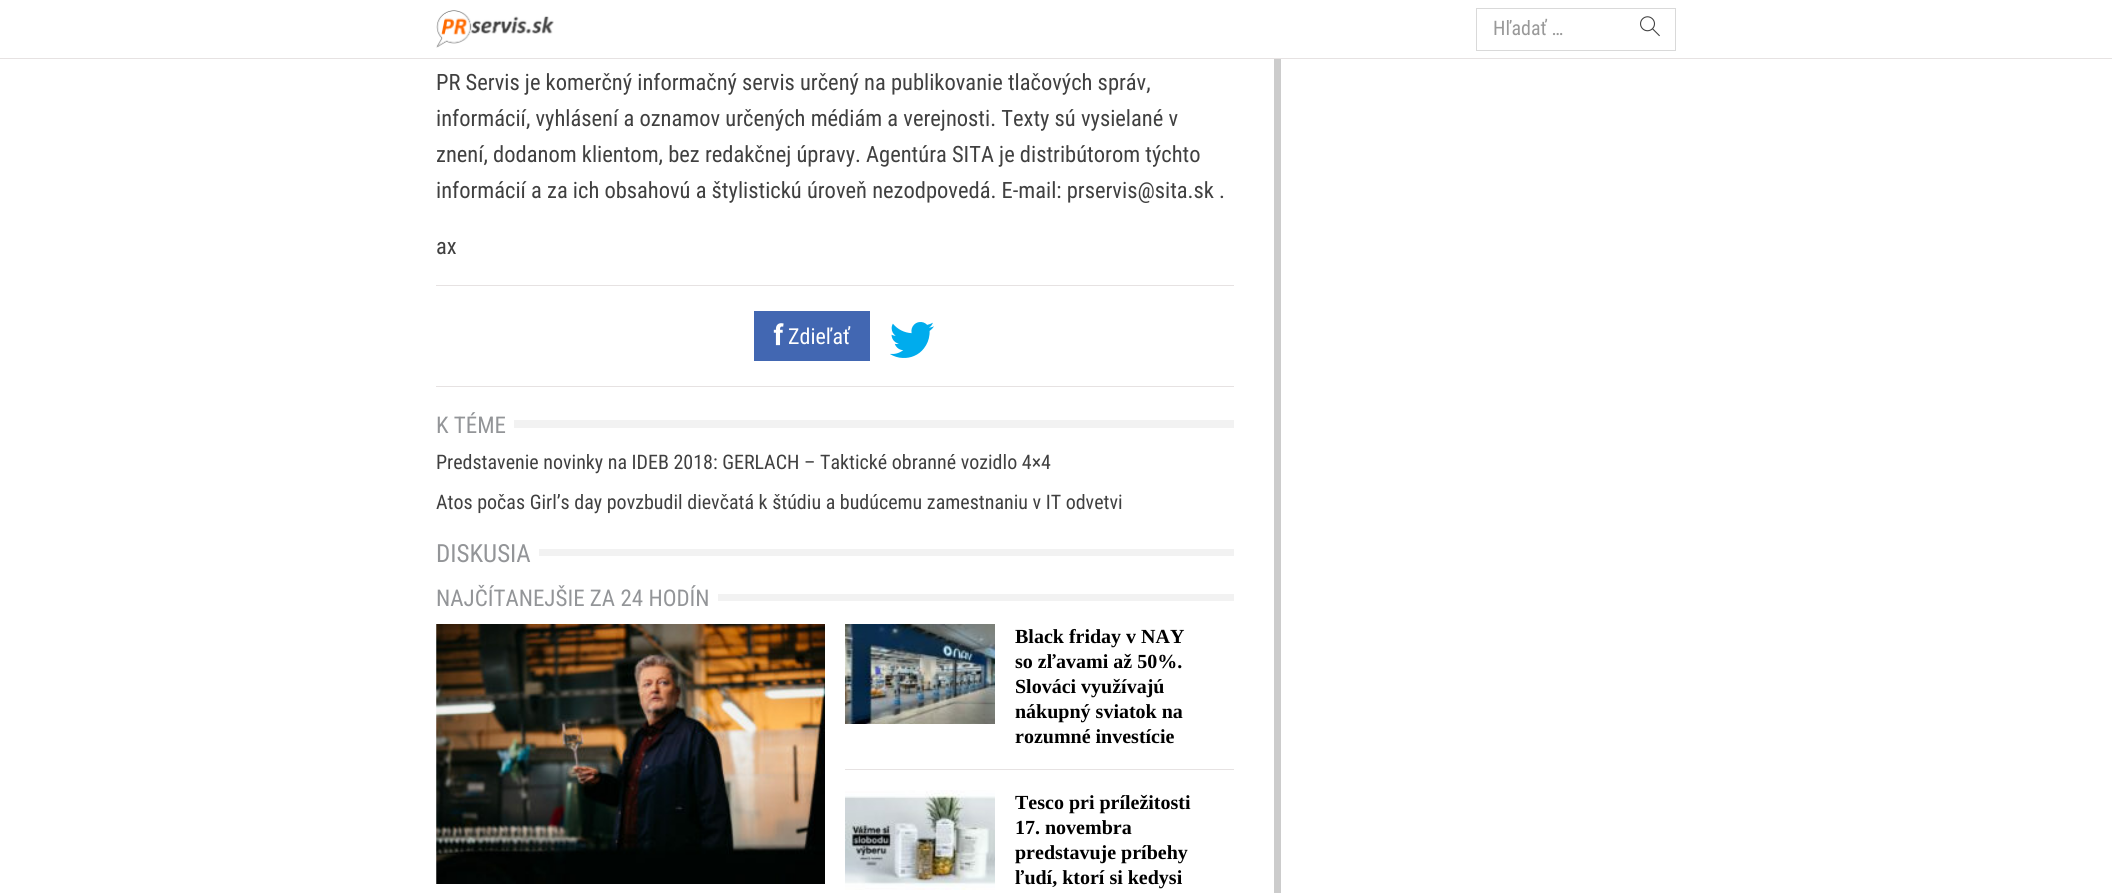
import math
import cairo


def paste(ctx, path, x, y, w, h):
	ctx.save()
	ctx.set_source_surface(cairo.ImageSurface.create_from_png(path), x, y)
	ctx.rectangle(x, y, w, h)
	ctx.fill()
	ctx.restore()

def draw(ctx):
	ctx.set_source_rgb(1, 1, 1)
	ctx.paint()
	ctx.set_source_rgb(0.902, 0.886, 0.886)
	ctx.rectangle(0, 58, 2112, 1)
	ctx.fill()
	paste(ctx, 'media/1.png', 436, 10, 118, 38)
	ctx.rectangle(1476.5, 8.5, 199, 42)
	ctx.set_source_rgb(0.851, 0.851, 0.851)
	ctx.set_line_width(1)
	ctx.stroke()
	ctx.select_font_face('Roboto Condensed')
	ctx.set_font_size(20)
	ctx.set_source_rgb(0.6, 0.6, 0.6)
	ctx.move_to(1493, 35)
	ctx.show_text('Hľadať …')
	paste(ctx, 'media/2.png', 1640, 16, 20, 21)
	ctx.set_font_size(22.5)
	ctx.set_source_rgb(0.251, 0.251, 0.251)
	for x, y, s in [
		(436, 90, 'PR Servis je komerčný informačný servis určený na publikovanie tlačových správ,'),
		(436, 126, 'informácií, vyhlásení a oznamov určených médiám a verejnosti. Texty sú vysielané v'),
		(436, 162, 'znení, dodanom klientom, bez redakčnej úpravy. Agentúra SITA je distribútorom týchto'),
		(436, 198, 'informácií a za ich obsahovú a štylistickú úroveň nezodpovedá. E-mail: prservis@sita.sk .'),
		(436, 254, 'ax'),
	]:
		ctx.move_to(x, y)
		ctx.show_text(s)
	ctx.set_source_rgb(0.902, 0.886, 0.886)
	ctx.rectangle(436, 285, 798, 1)
	ctx.rectangle(436, 386, 798, 1)
	ctx.fill()
	ctx.set_source_rgb(0.259, 0.404, 0.698)
	ctx.rectangle(754, 311, 116, 50)
	ctx.fill()
	paste(ctx, 'media/3.png', 773, 323, 11, 23)
	ctx.set_font_size(22)
	ctx.set_source_rgb(1, 1, 1)
	ctx.move_to(788, 344)
	ctx.show_text('Zdieľať')
	paste(ctx, 'media/4.png', 890, 322, 44, 36)
	ctx.set_source_rgb(0.8, 0.8, 0.8)
	ctx.rectangle(1274, 59, 7, 834)
	ctx.fill()
	ctx.set_font_size(23)
	ctx.set_source_rgb(0.576, 0.584, 0.596)
	ctx.move_to(436, 433)
	ctx.show_text('K TÉME')
	ctx.set_source_rgb(0.949, 0.949, 0.949)
	ctx.rectangle(514, 420, 720, 8)
	ctx.fill()
	ctx.set_font_size(20)
	ctx.set_source_rgb(0.251, 0.251, 0.251)
	ctx.move_to(436, 469)
	ctx.show_text('Predstavenie novinky na IDEB 2018: GERLACH – Taktické obranné vozidlo 4×4')
	ctx.move_to(436, 509)
	ctx.show_text('Atos počas Girl’s day povzbudil dievčatá k štúdiu a budúcemu zamestnaniu v IT odvetvi')
	ctx.set_font_size(25)
	ctx.set_source_rgb(0.576, 0.584, 0.596)
	ctx.move_to(436, 562)
	ctx.show_text('DISKUSIA')
	ctx.set_source_rgb(0.949, 0.949, 0.949)
	ctx.rectangle(539, 549, 695, 7)
	ctx.fill()
	ctx.set_font_size(23)
	ctx.set_source_rgb(0.576, 0.584, 0.596)
	ctx.move_to(436, 606)
	ctx.show_text('NAJČÍTANEJŠIE ZA 24 HODÍN')
	ctx.set_source_rgb(0.949, 0.949, 0.949)
	ctx.rectangle(718, 594, 516, 7)
	ctx.fill()
	paste(ctx, 'media/5.png', 436, 624, 389, 260)
	paste(ctx, 'media/6.png', 845, 624, 150, 100)
	ctx.select_font_face('Liberation Serif', cairo.FONT_SLANT_NORMAL, cairo.FONT_WEIGHT_BOLD)
	ctx.set_font_size(20)
	ctx.set_source_rgb(0, 0, 0)
	for x, y, s in [
		(1015, 643, 'Black friday v NAY'),
		(1015, 668, 'so zľavami až 50%.'),
		(1015, 693, 'Slováci využívajú'),
		(1015, 718, 'nákupný sviatok na'),
		(1015, 743, 'rozumné investície'),
	]:
		ctx.move_to(x, y)
		ctx.show_text(s)
	ctx.set_source_rgb(0.902, 0.886, 0.886)
	ctx.rectangle(845, 769, 389, 1)
	ctx.fill()
	paste(ctx, 'media/7.png', 845, 790, 150, 100)
	ctx.set_source_rgb(0, 0, 0)
	for x, y, s in [
		(1015, 809, 'Tesco pri príležitosti'),
		(1015, 834, '17. novembra'),
		(1015, 859, 'predstavuje príbehy'),
		(1015, 884, 'ľudí, ktorí si kedysi'),
	]:
		ctx.move_to(x, y)
		ctx.show_text(s)


surface = cairo.ImageSurface(cairo.FORMAT_RGB24, 2112, 893)
ctx = cairo.Context(surface)
options = cairo.FontOptions()
options.set_hint_metrics(cairo.HINT_METRICS_OFF)
options.set_hint_style(cairo.HINT_STYLE_NONE)
ctx.set_font_options(options)
ctx.set_miter_limit(4)
draw(ctx)
surface.write_to_png('image.png')
